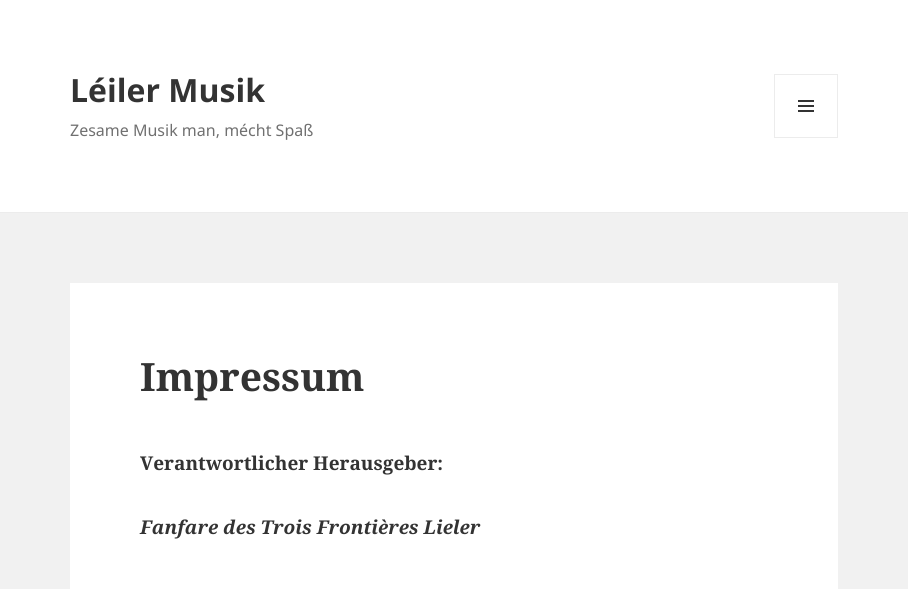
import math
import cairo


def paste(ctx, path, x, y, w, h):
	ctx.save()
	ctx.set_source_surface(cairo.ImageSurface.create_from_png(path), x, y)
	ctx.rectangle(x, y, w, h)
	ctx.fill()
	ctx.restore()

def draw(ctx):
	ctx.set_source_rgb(0.945, 0.945, 0.945)
	ctx.paint()
	ctx.set_source_rgb(1, 1, 1)
	ctx.rectangle(0, 0, 908, 212)
	ctx.fill()
	ctx.set_source_rgb(0.922, 0.922, 0.922)
	ctx.rectangle(0, 212, 908, 1)
	ctx.fill()
	ctx.select_font_face('Noto Sans', cairo.FONT_SLANT_NORMAL, cairo.FONT_WEIGHT_BOLD)
	ctx.set_font_size(32)
	ctx.set_source_rgb(0.2, 0.2, 0.2)
	ctx.move_to(70, 102)
	ctx.show_text('Léiler Musik')
	ctx.rectangle(774.5, 74.5, 63, 63)
	ctx.set_source_rgb(0.922, 0.922, 0.922)
	ctx.set_line_width(1)
	ctx.stroke()
	paste(ctx, 'media/1.png', 798, 100, 16, 12)
	ctx.select_font_face('Noto Sans')
	ctx.set_font_size(16)
	ctx.set_source_rgb(0.439, 0.439, 0.439)
	ctx.move_to(70, 136)
	ctx.show_text('Zesame Musik man, mécht Spaß')
	ctx.set_source_rgb(1, 1, 1)
	ctx.rectangle(70, 283, 768, 306)
	ctx.fill()
	ctx.select_font_face('Noto Serif', cairo.FONT_SLANT_NORMAL, cairo.FONT_WEIGHT_BOLD)
	ctx.set_font_size(39)
	ctx.set_source_rgb(0.2, 0.2, 0.2)
	ctx.move_to(140, 391)
	ctx.show_text('Impressum')
	ctx.set_font_size(19)
	ctx.move_to(140, 470)
	ctx.show_text('Verantwortlicher Herausgeber:')
	ctx.select_font_face('Noto Serif', cairo.FONT_SLANT_ITALIC, cairo.FONT_WEIGHT_BOLD)
	ctx.move_to(140, 534)
	ctx.show_text('Fanfare des Trois Frontières Lieler')


surface = cairo.ImageSurface(cairo.FORMAT_RGB24, 908, 589)
ctx = cairo.Context(surface)
options = cairo.FontOptions()
options.set_hint_metrics(cairo.HINT_METRICS_OFF)
options.set_hint_style(cairo.HINT_STYLE_NONE)
ctx.set_font_options(options)
ctx.set_miter_limit(4)
draw(ctx)
surface.write_to_png('image.png')
